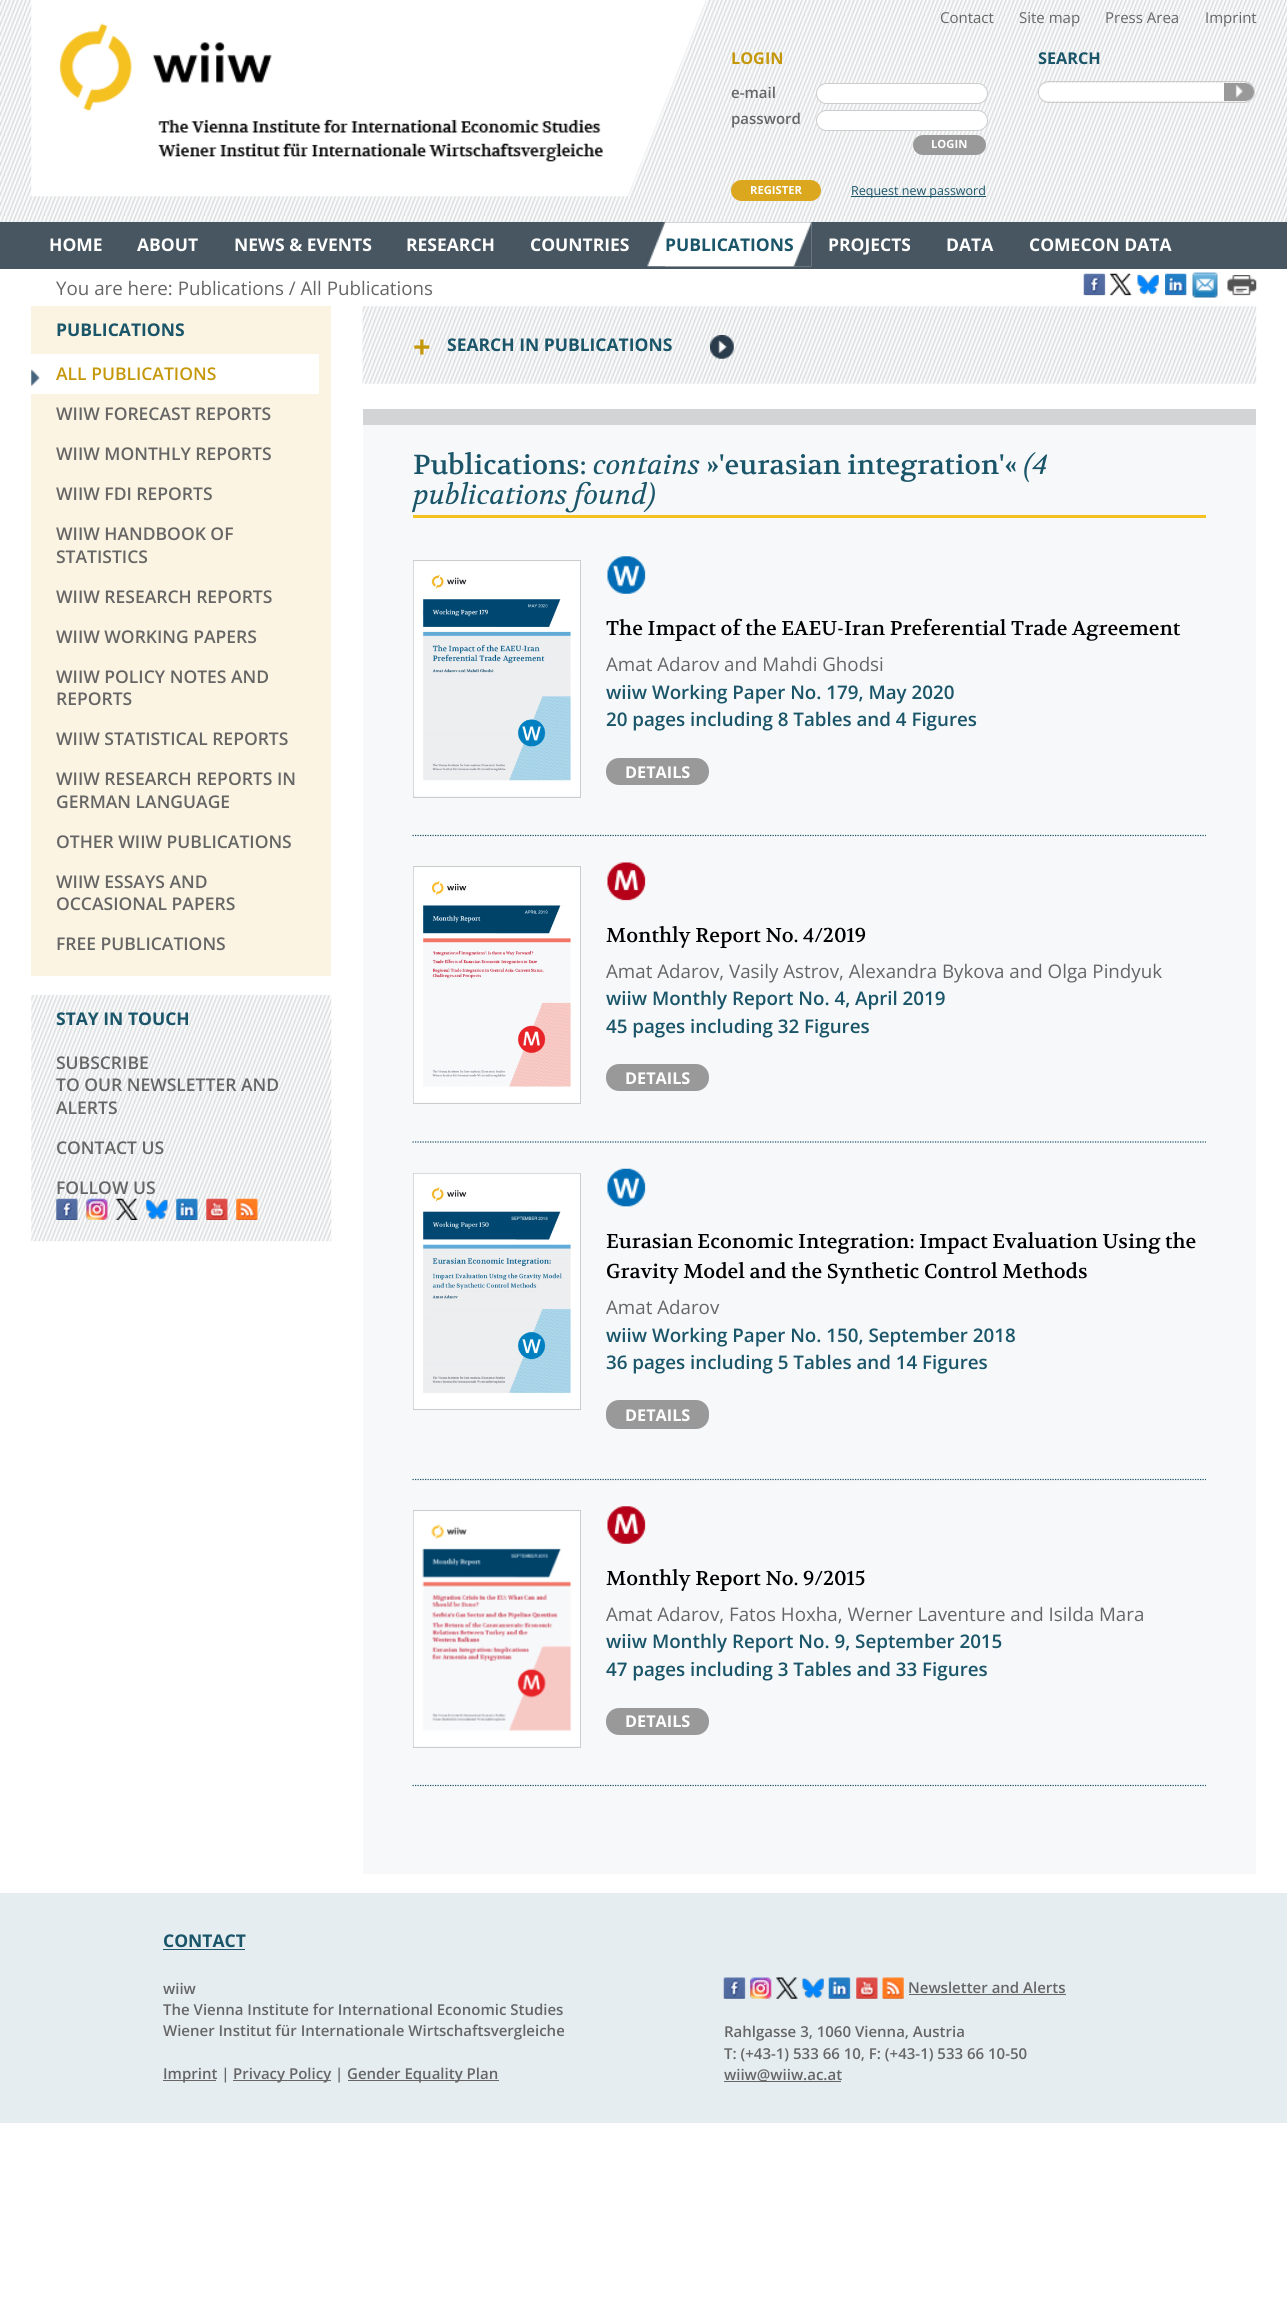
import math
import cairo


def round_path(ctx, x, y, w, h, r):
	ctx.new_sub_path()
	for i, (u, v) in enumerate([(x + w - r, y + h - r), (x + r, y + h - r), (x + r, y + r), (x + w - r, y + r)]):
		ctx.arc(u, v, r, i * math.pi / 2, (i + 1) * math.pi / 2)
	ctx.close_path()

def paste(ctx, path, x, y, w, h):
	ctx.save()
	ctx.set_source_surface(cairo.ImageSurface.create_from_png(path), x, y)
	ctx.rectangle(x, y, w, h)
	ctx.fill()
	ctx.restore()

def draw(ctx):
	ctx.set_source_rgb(1, 1, 1)
	ctx.paint()
	paste(ctx, 'media/1.png', 0, 0, 1287, 222)
	paste(ctx, 'media/2.png', 31, 0, 676, 197)
	ctx.select_font_face('Open Sans')
	ctx.set_font_size(15)
	ctx.set_source_rgb(0.4, 0.4, 0.4)
	for x, y, s in [
		(940, 23, 'Contact'),
		(1019, 23, 'Site map'),
		(1105, 23, 'Press Area'),
		(1205, 23, 'Imprint'),
	]:
		ctx.move_to(x, y)
		ctx.show_text(s)
	ctx.select_font_face('Open Sans', cairo.FONT_SLANT_NORMAL, cairo.FONT_WEIGHT_BOLD)
	ctx.set_font_size(16.25)
	ctx.set_source_rgb(0.773, 0.596, 0.047)
	ctx.move_to(731, 64)
	ctx.show_text('LOGIN')
	ctx.select_font_face('Open Sans SemiBold')
	ctx.set_font_size(15)
	ctx.set_source_rgb(0.4, 0.4, 0.4)
	ctx.move_to(731, 98)
	ctx.show_text('e-mail')
	ctx.set_source_rgb(1, 1, 1)
	round_path(ctx, 816.5, 83.5, 171, 20, 10)
	ctx.fill_preserve()
	ctx.set_source_rgb(0.8, 0.8, 0.8)
	ctx.set_line_width(1)
	ctx.stroke()
	ctx.set_source_rgb(0.4, 0.4, 0.4)
	ctx.move_to(731, 124)
	ctx.show_text('password')
	ctx.set_source_rgb(1, 1, 1)
	round_path(ctx, 816.5, 110.5, 171, 20, 10)
	ctx.fill_preserve()
	ctx.set_source_rgb(0.8, 0.8, 0.8)
	ctx.stroke()
	ctx.set_source_rgb(0.6, 0.6, 0.6)
	round_path(ctx, 913, 135, 73, 20, 10)
	ctx.fill()
	ctx.select_font_face('Open Sans', cairo.FONT_SLANT_NORMAL, cairo.FONT_WEIGHT_BOLD)
	ctx.set_font_size(11.25)
	ctx.set_source_rgb(1, 1, 1)
	ctx.move_to(931, 148)
	ctx.show_text('LOGIN')
	ctx.set_source_rgb(0.859, 0.655, 0.118)
	round_path(ctx, 731, 180, 90, 21, 10.5)
	ctx.fill()
	ctx.set_source_rgb(1, 1, 1)
	ctx.move_to(750, 194)
	ctx.show_text('REGISTER')
	ctx.set_source_rgb(0.102, 0.333, 0.412)
	ctx.rectangle(851, 196, 135, 1)
	ctx.fill()
	ctx.select_font_face('Open Sans')
	ctx.set_font_size(12.5)
	ctx.move_to(851, 195)
	ctx.show_text('Request new password')
	ctx.select_font_face('Open Sans', cairo.FONT_SLANT_NORMAL, cairo.FONT_WEIGHT_BOLD)
	ctx.set_font_size(16.25)
	ctx.move_to(1038, 64)
	ctx.show_text('SEARCH')
	round_path(ctx, 1038.5, 81.5, 216, 21, 10.5)
	ctx.set_source_rgb(0.8, 0.8, 0.8)
	ctx.stroke()
	ctx.set_source_rgb(1, 1, 1)
	round_path(ctx, 1039, 83, 191, 18, 9)
	ctx.fill()
	ctx.set_source_rgb(0.6, 0.6, 0.6)
	ctx.new_path()
	ctx.move_to(1224, 83)
	ctx.line_to(1245, 83)
	ctx.curve_to(1250, 83, 1254, 87, 1254, 92)
	ctx.curve_to(1254, 97, 1250, 101, 1245, 101)
	ctx.line_to(1224, 101)
	ctx.close_path()
	ctx.fill()
	paste(ctx, 'media/3.png', 1235, 85, 8, 13)
	ctx.set_source_rgb(0.278, 0.337, 0.376)
	ctx.rectangle(0, 222, 1287, 47)
	ctx.fill()
	ctx.set_font_size(17.5)
	ctx.set_source_rgb(1, 1, 1)
	for x, y, s in [
		(49, 251, 'HOME'),
		(137, 251, 'ABOUT'),
		(234, 251, 'NEWS & EVENTS'),
		(406, 251, 'RESEARCH'),
		(530, 251, 'COUNTRIES'),
	]:
		ctx.move_to(x, y)
		ctx.show_text(s)
	paste(ctx, 'media/4.png', 647, 222, 165, 45)
	paste(ctx, 'media/5.png', 665, 222, 147, 45)
	ctx.set_source_rgb(0.102, 0.333, 0.412)
	ctx.move_to(665, 251)
	ctx.show_text('PUBLICATIONS')
	ctx.set_source_rgb(1, 1, 1)
	for x, y, s in [
		(828, 251, 'PROJECTS'),
		(946, 251, 'DATA'),
		(1029, 251, 'COMECON DATA'),
	]:
		ctx.move_to(x, y)
		ctx.show_text(s)
	ctx.select_font_face('Open Sans')
	ctx.set_font_size(18.75)
	ctx.set_source_rgb(0.4, 0.4, 0.4)
	ctx.move_to(56, 295)
	ctx.show_text('You are here: Publications / All Publications')
	paste(ctx, 'media/6.png', 1083, 273, 23, 23)
	paste(ctx, 'media/7.png', 1110, 273, 22, 23)
	paste(ctx, 'media/8.png', 1137, 274, 22, 21)
	paste(ctx, 'media/9.png', 1165, 273, 22, 23)
	paste(ctx, 'media/10.png', 1192, 272, 26, 26)
	paste(ctx, 'media/11.png', 1227, 275, 30, 21)
	ctx.set_source_rgb(0.984, 0.957, 0.886)
	ctx.rectangle(31, 306, 300, 670)
	ctx.fill()
	ctx.select_font_face('Open Sans', cairo.FONT_SLANT_NORMAL, cairo.FONT_WEIGHT_BOLD)
	ctx.set_font_size(17.5)
	ctx.set_source_rgb(0.102, 0.333, 0.412)
	ctx.move_to(56, 336)
	ctx.show_text('PUBLICATIONS')
	ctx.set_source_rgb(1, 1, 1)
	ctx.rectangle(31, 354, 288, 40)
	ctx.fill()
	paste(ctx, 'media/12.png', 31, 369, 9, 18)
	ctx.select_font_face('Open Sans SemiBold')
	ctx.set_source_rgb(0.773, 0.596, 0.047)
	ctx.move_to(56, 380)
	ctx.show_text('ALL PUBLICATIONS')
	ctx.set_source_rgb(0.4, 0.4, 0.4)
	for x, y, s in [
		(56, 420, 'WIIW FORECAST REPORTS'),
		(56, 460, 'WIIW MONTHLY REPORTS'),
		(56, 500, 'WIIW FDI REPORTS'),
		(56, 540, 'WIIW HANDBOOK OF'),
		(56, 563, 'STATISTICS'),
		(56, 603, 'WIIW RESEARCH REPORTS'),
		(56, 643, 'WIIW WORKING PAPERS'),
		(56, 683, 'WIIW POLICY NOTES AND'),
		(56, 705, 'REPORTS'),
		(56, 745, 'WIIW STATISTICAL REPORTS'),
		(56, 785, 'WIIW RESEARCH REPORTS IN'),
		(56, 808, 'GERMAN LANGUAGE'),
		(56, 848, 'OTHER WIIW PUBLICATIONS'),
		(56, 888, 'WIIW ESSAYS AND'),
		(56, 910, 'OCCASIONAL PAPERS'),
		(56, 950, 'FREE PUBLICATIONS'),
	]:
		ctx.move_to(x, y)
		ctx.show_text(s)
	paste(ctx, 'media/13.png', 31, 995, 301, 247)
	ctx.select_font_face('Open Sans', cairo.FONT_SLANT_NORMAL, cairo.FONT_WEIGHT_BOLD)
	ctx.set_source_rgb(0.102, 0.333, 0.412)
	ctx.move_to(56, 1025)
	ctx.show_text('STAY IN TOUCH')
	ctx.select_font_face('Open Sans SemiBold')
	ctx.set_source_rgb(0.4, 0.4, 0.4)
	for x, y, s in [
		(56, 1069, 'SUBSCRIBE'),
		(56, 1091, 'TO OUR NEWSLETTER AND'),
		(56, 1114, 'ALERTS'),
		(56, 1154, 'CONTACT US'),
		(56, 1194, 'FOLLOW US'),
	]:
		ctx.move_to(x, y)
		ctx.show_text(s)
	paste(ctx, 'media/14.png', 56, 1198, 22, 22)
	paste(ctx, 'media/15.png', 86, 1198, 22, 22)
	paste(ctx, 'media/16.png', 116, 1198, 22, 22)
	paste(ctx, 'media/17.png', 146, 1199, 22, 21)
	paste(ctx, 'media/18.png', 176, 1198, 22, 22)
	paste(ctx, 'media/19.png', 206, 1198, 22, 22)
	paste(ctx, 'media/20.png', 236, 1198, 22, 22)
	paste(ctx, 'media/21.png', 362, 306, 895, 78)
	ctx.select_font_face('Open Sans', cairo.FONT_SLANT_NORMAL, cairo.FONT_WEIGHT_BOLD)
	ctx.set_font_size(31)
	ctx.set_source_rgb(0.773, 0.596, 0.047)
	ctx.move_to(413, 358)
	ctx.show_text('+')
	ctx.set_font_size(17.5)
	ctx.set_source_rgb(0.102, 0.333, 0.412)
	ctx.move_to(447, 351)
	ctx.show_text('SEARCH IN PUBLICATIONS')
	paste(ctx, 'media/22.png', 710, 335, 24, 24)
	ctx.set_source_rgb(0.965, 0.969, 0.973)
	ctx.rectangle(363, 425, 893, 1449)
	ctx.fill()
	ctx.set_source_rgb(0.824, 0.831, 0.835)
	ctx.rectangle(363, 409, 893, 16)
	ctx.fill()
	ctx.set_source_rgb(0.957, 0.757, 0.129)
	ctx.rectangle(413, 515, 793, 3)
	ctx.fill()
	ctx.select_font_face('Volkhov')
	ctx.set_font_size(27.5)
	ctx.set_source_rgb(0.102, 0.333, 0.412)
	ctx.move_to(413, 474)
	ctx.show_text('Publications:')
	ctx.select_font_face('Volkhov', cairo.FONT_SLANT_ITALIC)
	ctx.move_to(593, 474)
	ctx.show_text('contains')
	ctx.select_font_face('Volkhov')
	ctx.move_to(706, 474)
	ctx.show_text('»\'eurasian integration\'«')
	ctx.select_font_face('Volkhov', cairo.FONT_SLANT_ITALIC)
	ctx.move_to(1024, 474)
	ctx.show_text('(4')
	ctx.move_to(413, 504)
	ctx.show_text('publications found)')
	ctx.new_path()
	ctx.move_to(412.5, 835.5)
	ctx.line_to(1206, 835.5)
	ctx.set_line_width(1.2)
	ctx.set_dash([1.25, 1.25])
	ctx.stroke()
	ctx.rectangle(413.5, 560.5, 167, 237)
	ctx.set_source_rgb(0.8, 0.8, 0.8)
	ctx.set_line_width(1)
	ctx.set_dash([])
	ctx.stroke()
	paste(ctx, 'media/23.png', 413, 561, 167, 235)
	paste(ctx, 'media/24.png', 607, 556, 39, 38)
	ctx.select_font_face('Volkhov')
	ctx.set_font_size(20)
	ctx.set_source_rgb(0, 0, 0)
	ctx.move_to(606, 635)
	ctx.show_text('The Impact of the EAEU-Iran Preferential Trade Agreement')
	ctx.select_font_face('Open Sans')
	ctx.set_font_size(18.75)
	ctx.set_source_rgb(0.4, 0.4, 0.4)
	ctx.move_to(606, 671)
	ctx.show_text('Amat Adarov and Mahdi Ghodsi')
	ctx.select_font_face('Open Sans SemiBold')
	ctx.set_source_rgb(0.102, 0.333, 0.412)
	ctx.move_to(606, 699)
	ctx.show_text('wiiw Working Paper No. 179, May 2020')
	ctx.move_to(606, 726)
	ctx.show_text('20 pages including 8 Tables and 4 Figures')
	ctx.set_source_rgb(0.6, 0.6, 0.6)
	round_path(ctx, 606, 758, 103, 27, 13)
	ctx.fill()
	ctx.select_font_face('Open Sans', cairo.FONT_SLANT_NORMAL, cairo.FONT_WEIGHT_BOLD)
	ctx.set_font_size(16.25)
	ctx.set_source_rgb(1, 1, 1)
	ctx.move_to(625, 778)
	ctx.show_text('DETAILS')
	ctx.new_path()
	ctx.move_to(412.5, 1142)
	ctx.line_to(1206, 1142)
	ctx.set_source_rgb(0.102, 0.333, 0.412)
	ctx.set_line_width(1.2)
	ctx.set_dash([1.25, 1.25])
	ctx.stroke()
	ctx.rectangle(413.5, 866.5, 167, 237)
	ctx.set_source_rgb(0.8, 0.8, 0.8)
	ctx.set_line_width(1)
	ctx.set_dash([])
	ctx.stroke()
	paste(ctx, 'media/25.png', 413, 867, 167, 236)
	paste(ctx, 'media/26.png', 607, 862, 39, 39)
	ctx.select_font_face('Volkhov')
	ctx.set_font_size(20)
	ctx.set_source_rgb(0, 0, 0)
	ctx.move_to(606, 942)
	ctx.show_text('Monthly Report No. 4/2019')
	ctx.select_font_face('Open Sans')
	ctx.set_font_size(18.75)
	ctx.set_source_rgb(0.4, 0.4, 0.4)
	ctx.move_to(606, 978)
	ctx.show_text('Amat Adarov, Vasily Astrov, Alexandra Bykova and Olga Pindyuk')
	ctx.select_font_face('Open Sans SemiBold')
	ctx.set_source_rgb(0.102, 0.333, 0.412)
	ctx.move_to(606, 1005)
	ctx.show_text('wiiw Monthly Report No. 4, April 2019')
	ctx.move_to(606, 1033)
	ctx.show_text('45 pages including 32 Figures')
	ctx.set_source_rgb(0.6, 0.6, 0.6)
	round_path(ctx, 606, 1064, 103, 27, 13)
	ctx.fill()
	ctx.select_font_face('Open Sans', cairo.FONT_SLANT_NORMAL, cairo.FONT_WEIGHT_BOLD)
	ctx.set_font_size(16.25)
	ctx.set_source_rgb(1, 1, 1)
	ctx.move_to(625, 1084)
	ctx.show_text('DETAILS')
	ctx.new_path()
	ctx.move_to(412.5, 1479.5)
	ctx.line_to(1206, 1479.5)
	ctx.set_source_rgb(0.102, 0.333, 0.412)
	ctx.set_line_width(1.2)
	ctx.set_dash([1.25, 1.25])
	ctx.stroke()
	ctx.rectangle(413.5, 1173.5, 167, 236)
	ctx.set_source_rgb(0.8, 0.8, 0.8)
	ctx.set_line_width(1)
	ctx.set_dash([])
	ctx.stroke()
	paste(ctx, 'media/27.png', 413, 1173, 167, 236)
	paste(ctx, 'media/28.png', 607, 1168, 39, 39)
	ctx.select_font_face('Volkhov')
	ctx.set_font_size(20)
	ctx.set_source_rgb(0, 0, 0)
	ctx.move_to(606, 1248)
	ctx.show_text('Eurasian Economic Integration: Impact Evaluation Using the')
	ctx.move_to(606, 1278)
	ctx.show_text('Gravity Model and the Synthetic Control Methods')
	ctx.select_font_face('Open Sans')
	ctx.set_font_size(18.75)
	ctx.set_source_rgb(0.4, 0.4, 0.4)
	ctx.move_to(606, 1314)
	ctx.show_text('Amat Adarov')
	ctx.select_font_face('Open Sans SemiBold')
	ctx.set_source_rgb(0.102, 0.333, 0.412)
	ctx.move_to(606, 1342)
	ctx.show_text('wiiw Working Paper No. 150, September 2018')
	ctx.move_to(606, 1369)
	ctx.show_text('36 pages including 5 Tables and 14 Figures')
	ctx.set_source_rgb(0.6, 0.6, 0.6)
	round_path(ctx, 606, 1400, 103, 29, 13)
	ctx.fill()
	ctx.select_font_face('Open Sans', cairo.FONT_SLANT_NORMAL, cairo.FONT_WEIGHT_BOLD)
	ctx.set_font_size(16.25)
	ctx.set_source_rgb(1, 1, 1)
	ctx.move_to(625, 1421)
	ctx.show_text('DETAILS')
	ctx.new_path()
	ctx.move_to(412.5, 1785.5)
	ctx.line_to(1206, 1785.5)
	ctx.set_source_rgb(0.102, 0.333, 0.412)
	ctx.set_line_width(1.2)
	ctx.set_dash([1.25, 1.25])
	ctx.stroke()
	ctx.rectangle(413.5, 1510.5, 167, 237)
	ctx.set_source_rgb(0.8, 0.8, 0.8)
	ctx.set_line_width(1)
	ctx.set_dash([])
	ctx.stroke()
	paste(ctx, 'media/29.png', 413, 1511, 167, 235)
	paste(ctx, 'media/30.png', 607, 1506, 39, 38)
	ctx.select_font_face('Volkhov')
	ctx.set_font_size(20)
	ctx.set_source_rgb(0, 0, 0)
	ctx.move_to(606, 1585)
	ctx.show_text('Monthly Report No. 9/2015')
	ctx.select_font_face('Open Sans')
	ctx.set_font_size(18.75)
	ctx.set_source_rgb(0.4, 0.4, 0.4)
	ctx.move_to(606, 1621)
	ctx.show_text('Amat Adarov, Fatos Hoxha, Werner Laventure and Isilda Mara')
	ctx.select_font_face('Open Sans SemiBold')
	ctx.set_source_rgb(0.102, 0.333, 0.412)
	ctx.move_to(606, 1648)
	ctx.show_text('wiiw Monthly Report No. 9, September 2015')
	ctx.move_to(606, 1676)
	ctx.show_text('47 pages including 3 Tables and 33 Figures')
	ctx.set_source_rgb(0.6, 0.6, 0.6)
	round_path(ctx, 606, 1708, 103, 27, 13)
	ctx.fill()
	ctx.select_font_face('Open Sans', cairo.FONT_SLANT_NORMAL, cairo.FONT_WEIGHT_BOLD)
	ctx.set_font_size(16.25)
	ctx.set_source_rgb(1, 1, 1)
	ctx.move_to(625, 1727)
	ctx.show_text('DETAILS')
	ctx.set_source_rgb(0.898, 0.929, 0.945)
	ctx.rectangle(0, 1893, 1287, 230)
	ctx.fill()
	ctx.set_font_size(17.5)
	ctx.set_source_rgb(0.102, 0.333, 0.412)
	ctx.move_to(163, 1947)
	ctx.show_text('CONTACT')
	ctx.rectangle(163, 1949, 82, 1)
	ctx.fill()
	ctx.select_font_face('Open Sans SemiBold')
	ctx.set_font_size(15)
	ctx.set_source_rgb(0.4, 0.4, 0.4)
	for x, y, s in [
		(163, 1994, 'wiiw'),
		(163, 2015, 'The Vienna Institute for International Economic Studies'),
		(163, 2036, 'Wiener Institut für Internationale Wirtschaftsvergleiche'),
	]:
		ctx.move_to(x, y)
		ctx.show_text(s)
	ctx.rectangle(163, 2080, 53, 1)
	ctx.fill()
	ctx.move_to(163, 2079)
	ctx.show_text('Imprint |')
	ctx.rectangle(233, 2080, 98, 1)
	ctx.fill()
	ctx.move_to(233, 2079)
	ctx.show_text('Privacy Policy |')
	ctx.rectangle(348, 2080, 151, 1)
	ctx.fill()
	ctx.move_to(347, 2079)
	ctx.show_text('Gender Equality Plan')
	paste(ctx, 'media/31.png', 723, 1977, 23, 22)
	paste(ctx, 'media/32.png', 750, 1977, 22, 22)
	paste(ctx, 'media/33.png', 776, 1977, 22, 22)
	paste(ctx, 'media/34.png', 802, 1977, 22, 22)
	paste(ctx, 'media/35.png', 828, 1977, 23, 22)
	paste(ctx, 'media/36.png', 856, 1977, 22, 22)
	paste(ctx, 'media/37.png', 882, 1977, 22, 22)
	ctx.move_to(908, 1993)
	ctx.show_text('Newsletter and Alerts')
	ctx.rectangle(909, 1994, 157, 1)
	ctx.fill()
	ctx.move_to(724, 2037)
	ctx.show_text('Rahlgasse 3, 1060 Vienna, Austria')
	ctx.move_to(724, 2059)
	ctx.show_text('T: (+43-1) 533 66 10, F: (+43-1) 533 66 10-50')
	ctx.rectangle(724, 2081, 117, 1)
	ctx.fill()
	ctx.move_to(724, 2080)
	ctx.show_text('wiiw@wiiw.ac.at')


surface = cairo.ImageSurface(cairo.FORMAT_RGB24, 1287, 2308)
ctx = cairo.Context(surface)
options = cairo.FontOptions()
options.set_hint_metrics(cairo.HINT_METRICS_OFF)
options.set_hint_style(cairo.HINT_STYLE_NONE)
ctx.set_font_options(options)
ctx.set_miter_limit(4)
draw(ctx)
surface.write_to_png('image.png')
